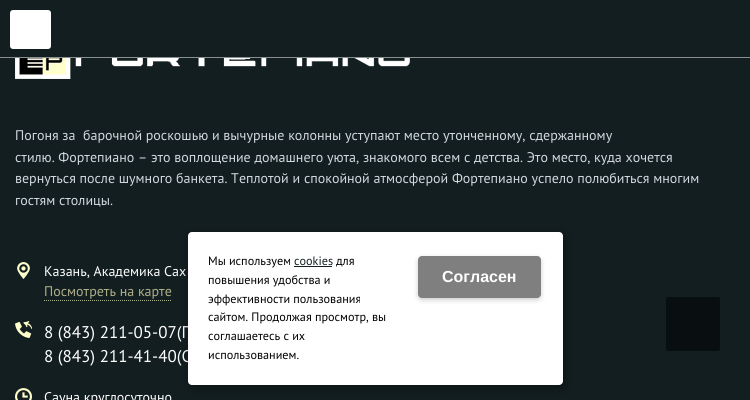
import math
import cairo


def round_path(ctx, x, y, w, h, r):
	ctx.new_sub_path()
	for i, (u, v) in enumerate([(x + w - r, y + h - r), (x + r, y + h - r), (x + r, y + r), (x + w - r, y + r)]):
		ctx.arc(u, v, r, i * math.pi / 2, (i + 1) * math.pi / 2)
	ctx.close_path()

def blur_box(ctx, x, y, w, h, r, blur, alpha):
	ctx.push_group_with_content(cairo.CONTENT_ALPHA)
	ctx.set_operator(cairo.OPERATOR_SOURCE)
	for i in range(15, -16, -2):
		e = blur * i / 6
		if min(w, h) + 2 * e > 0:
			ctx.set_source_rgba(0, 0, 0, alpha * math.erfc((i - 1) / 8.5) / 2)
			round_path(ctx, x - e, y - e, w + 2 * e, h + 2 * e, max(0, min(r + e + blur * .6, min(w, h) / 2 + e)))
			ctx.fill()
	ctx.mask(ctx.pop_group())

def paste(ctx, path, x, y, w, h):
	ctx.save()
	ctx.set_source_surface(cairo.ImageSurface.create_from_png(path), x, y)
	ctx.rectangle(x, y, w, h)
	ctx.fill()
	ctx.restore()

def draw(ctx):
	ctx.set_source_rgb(0.078, 0.118, 0.125)
	ctx.paint()
	ctx.set_source_rgb(0.541, 0.561, 0.565)
	ctx.rectangle(0, 57, 750, 1)
	ctx.fill()
	ctx.set_source_rgb(1, 1, 1)
	round_path(ctx, 10, 10, 41, 39, 3)
	ctx.fill()
	paste(ctx, 'media/1.png', 15, 58, 395, 21)
	ctx.select_font_face('PT Sans')
	ctx.set_font_size(14)
	ctx.set_source_rgb(0.824, 0.851, 0.875)
	for x, y, s in [
		(15, 140, 'Погоня за  барочной роскошью и вычурные колонны уступают место утонченному, сдержанному'),
		(15, 162, 'стилю. Фортепиано – это воплощение домашнего уюта, знакомого всем с детства. Это место, куда хочется'),
		(15, 183, 'вернуться после шумного банкета. Теплотой и спокойной атмосферой Фортепиано успело полюбиться многим'),
		(15, 205, 'гостям столицы.'),
	]:
		ctx.move_to(x, y)
		ctx.show_text(s)
	paste(ctx, 'media/2.png', 17, 262, 13, 17)
	ctx.set_source_rgb(0.996, 0.996, 0.996)
	ctx.move_to(44, 276)
	ctx.show_text('Казань, Академика Сах')
	ctx.set_source_rgb(0.686, 0.686, 0.541)
	ctx.move_to(44, 296)
	ctx.show_text('Посмотреть на карте')
	ctx.new_path()
	ctx.move_to(44, 300.5)
	ctx.line_to(172, 300.5)
	ctx.set_line_width(1)
	ctx.set_dash([1, 1])
	ctx.stroke()
	paste(ctx, 'media/3.png', 15, 321, 18, 17)
	ctx.set_font_size(17)
	ctx.set_source_rgb(0.996, 0.996, 0.996)
	ctx.move_to(44, 338)
	ctx.show_text('8 (843) 211-05-07(Г')
	ctx.move_to(44, 362)
	ctx.show_text('8 (843) 211-41-40(С')
	paste(ctx, 'media/4.png', 15, 388, 17, 12)
	ctx.set_font_size(14)
	ctx.move_to(44, 402)
	ctx.show_text('Сауна круглосуточно')
	ctx.set_source_rgb(0, 0, 0)
	blur_box(ctx, 190, 235, 375, 153, 4, 5, 0.4)
	ctx.set_source_rgb(1, 1, 1)
	round_path(ctx, 188, 232, 375, 153, 4)
	ctx.fill()
	ctx.set_font_size(12.2)
	ctx.set_source_rgb(0, 0, 0)
	ctx.move_to(208, 265)
	ctx.show_text('Мы используем')
	ctx.set_source_rgb(0.078, 0.118, 0.125)
	ctx.move_to(294, 265)
	ctx.show_text('cookies')
	ctx.rectangle(294, 266, 38, 1)
	ctx.fill()
	ctx.set_source_rgb(0, 0, 0)
	for x, y, s in [
		(336, 265, 'для'),
		(208, 284, 'повышения удобства и'),
		(208, 303, 'эффективности пользования'),
		(208, 321, 'сайтом. Продолжая просмотр, вы'),
		(208, 340, 'соглашаетесь с их'),
		(208, 359, 'использованием.'),
	]:
		ctx.move_to(x, y)
		ctx.show_text(s)
	ctx.set_source_rgb(0, 0, 0)
	blur_box(ctx, 418, 258, 123, 42, 4, 2.5, 0.2)
	ctx.set_source_rgb(0.498, 0.498, 0.498)
	round_path(ctx, 418, 256, 123, 42, 4)
	ctx.fill()
	ctx.select_font_face('Liberation Sans', cairo.FONT_SLANT_NORMAL, cairo.FONT_WEIGHT_BOLD)
	ctx.set_font_size(16)
	ctx.set_source_rgb(0.996, 0.996, 0.996)
	ctx.move_to(442, 282)
	ctx.show_text('Cогласен')
	ctx.set_source_rgb(0.039, 0.059, 0.063)
	round_path(ctx, 666, 297, 54, 54, 2)
	ctx.fill()


surface = cairo.ImageSurface(cairo.FORMAT_RGB24, 750, 400)
ctx = cairo.Context(surface)
options = cairo.FontOptions()
options.set_hint_metrics(cairo.HINT_METRICS_OFF)
options.set_hint_style(cairo.HINT_STYLE_NONE)
ctx.set_font_options(options)
ctx.set_miter_limit(4)
draw(ctx)
surface.write_to_png('image.png')
